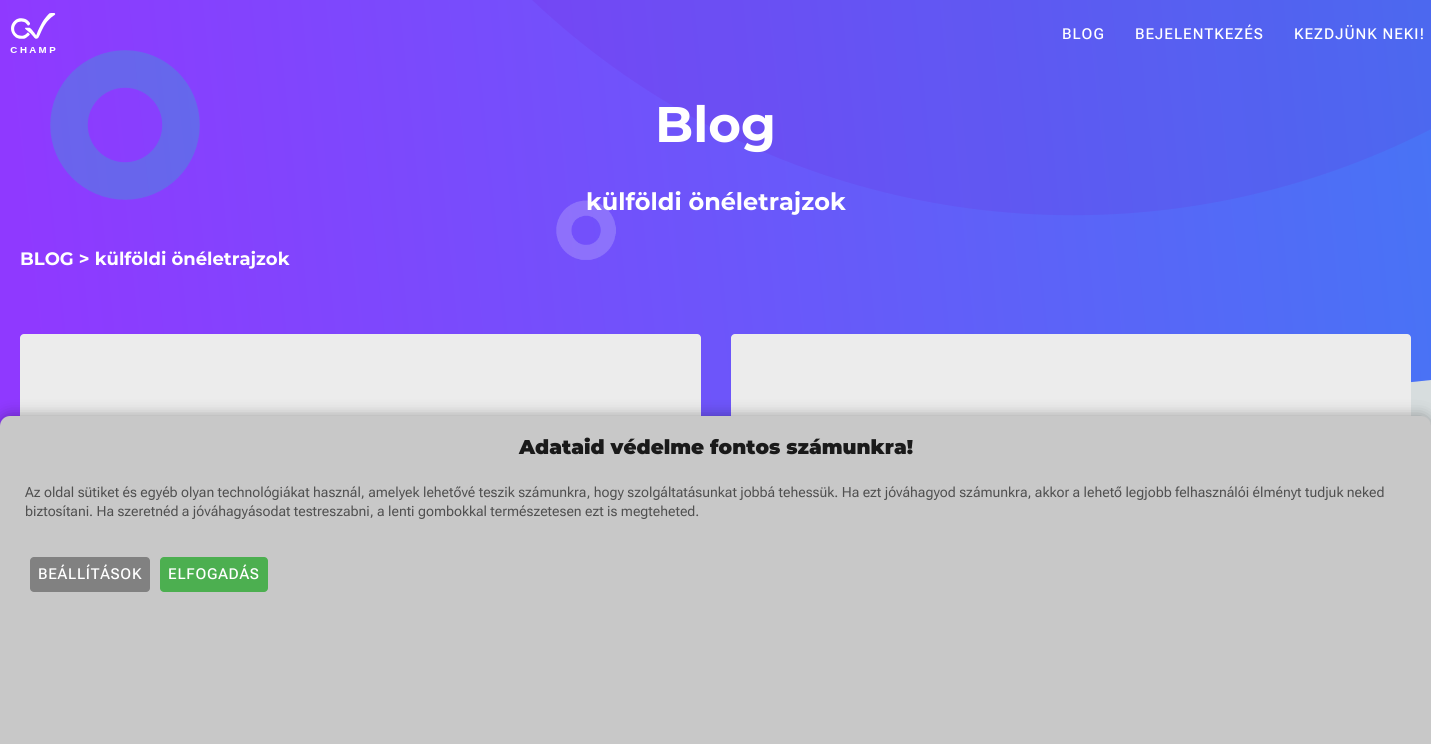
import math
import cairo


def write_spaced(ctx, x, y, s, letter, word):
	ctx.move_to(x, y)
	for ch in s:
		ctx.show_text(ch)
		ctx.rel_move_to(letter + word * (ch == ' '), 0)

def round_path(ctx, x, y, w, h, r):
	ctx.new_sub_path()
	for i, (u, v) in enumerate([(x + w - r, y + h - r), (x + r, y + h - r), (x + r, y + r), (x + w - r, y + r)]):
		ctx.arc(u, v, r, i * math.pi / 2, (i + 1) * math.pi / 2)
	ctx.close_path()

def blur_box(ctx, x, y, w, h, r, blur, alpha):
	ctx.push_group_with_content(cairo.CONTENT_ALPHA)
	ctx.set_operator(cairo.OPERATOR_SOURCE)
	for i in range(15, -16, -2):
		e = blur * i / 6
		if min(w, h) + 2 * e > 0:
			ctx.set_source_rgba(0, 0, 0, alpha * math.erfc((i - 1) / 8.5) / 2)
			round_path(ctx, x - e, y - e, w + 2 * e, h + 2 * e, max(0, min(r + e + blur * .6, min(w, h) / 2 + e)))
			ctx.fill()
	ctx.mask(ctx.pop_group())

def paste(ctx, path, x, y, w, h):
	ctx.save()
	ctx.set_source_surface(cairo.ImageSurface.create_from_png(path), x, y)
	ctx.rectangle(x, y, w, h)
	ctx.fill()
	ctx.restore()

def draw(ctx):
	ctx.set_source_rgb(1, 1, 1)
	ctx.paint()
	gradient = cairo.LinearGradient(0, -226, 1431, 26)
	gradient.add_color_stop_rgba(0, 0.882, 0.957, 0.969, 1)
	gradient.add_color_stop_rgba(1, 0.843, 0.867, 0.871, 1)
	ctx.set_source(gradient)
	ctx.new_path()
	ctx.move_to(0, -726)
	ctx.line_to(1431, -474)
	ctx.line_to(1431, 526)
	ctx.line_to(0, 274)
	ctx.close_path()
	ctx.fill()
	gradient = cairo.LinearGradient(0, 30, 1431, -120)
	gradient.add_color_stop_rgba(0, 0.561, 0.224, 1, 1)
	gradient.add_color_stop_rgba(1, 0.278, 0.455, 0.961, 1)
	ctx.set_source(gradient)
	ctx.new_path()
	ctx.move_to(0, -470)
	ctx.line_to(1431, -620)
	ctx.line_to(1431, 380)
	ctx.line_to(0, 530)
	ctx.close_path()
	ctx.fill()
	ctx.arc(125, 125, 56, 0, 2 * math.pi)
	ctx.set_source_rgba(0.02, 0.867, 0.725, 0.25)
	ctx.set_line_width(37.5)
	ctx.stroke()
	paste(ctx, 'media/1.png', 556, 200, 60, 60)
	ctx.arc(1073, -572, 590.5, 0, 2 * math.pi)
	ctx.set_source_rgba(0.455, 0.004, 0.722, 0.1)
	ctx.set_line_width(393.5)
	ctx.stroke()
	paste(ctx, 'media/2.png', 10, 13, 46, 40)
	ctx.select_font_face('Roboto Flex Medium')
	ctx.set_font_size(15)
	ctx.set_source_rgb(1, 1, 1)
	for x, y, s in [
		(1062, 39, 'BLOG'),
		(1135, 39, 'BEJELENTKEZÉS'),
		(1294, 39, 'KEZDJÜNK NEKI!'),
	]:
		write_spaced(ctx, x, y, s, 1, 0)
	ctx.select_font_face('Montserrat', cairo.FONT_SLANT_NORMAL, cairo.FONT_WEIGHT_BOLD)
	ctx.set_font_size(50)
	ctx.move_to(655, 142)
	ctx.show_text('Blog')
	ctx.set_font_size(24)
	ctx.move_to(586, 210)
	ctx.show_text('külföldi önéletrajzok')
	ctx.set_font_size(18)
	ctx.move_to(20, 265)
	ctx.show_text('BLOG > külföldi önéletrajzok')
	ctx.set_source_rgb(0.922, 0.922, 0.922)
	round_path(ctx, 20, 334, 681, 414, 4)
	ctx.fill()
	round_path(ctx, 731, 334, 680, 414, 4)
	ctx.fill()
	ctx.set_source_rgb(0, 0, 0)
	blur_box(ctx, 0, 416, 1431, 328, 10, 7.5, 0.35)
	ctx.set_source_rgb(0.784, 0.784, 0.784)
	ctx.new_path()
	ctx.move_to(10, 416)
	ctx.line_to(1421, 416)
	ctx.curve_to(1426.5, 416, 1431, 420.5, 1431, 426)
	ctx.line_to(1431, 744)
	ctx.line_to(0, 744)
	ctx.line_to(0, 426)
	ctx.curve_to(0, 420.5, 4.5, 416, 10, 416)
	ctx.close_path()
	ctx.fill()
	ctx.select_font_face('Montserrat Black')
	ctx.set_font_size(20)
	ctx.set_source_rgb(0.102, 0.102, 0.102)
	ctx.move_to(519, 454)
	ctx.show_text('Adataid védelme fontos számunkra!')
	ctx.select_font_face('Roboto Flex')
	ctx.set_font_size(14)
	ctx.set_source_rgb(0.314, 0.314, 0.314)
	ctx.move_to(25, 497)
	ctx.show_text('Az oldal sütiket és egyéb olyan technológiákat használ, amelyek lehetővé teszik számunkra, hogy szolgáltatásunkat jobbá tehessük. Ha ezt jóváhagyod számunkra, akkor a lehető legjobb felhasználói élményt tudjuk neked')
	ctx.move_to(25, 516)
	ctx.show_text('biztosítani. Ha szeretnéd a jóváhagyásodat testreszabni, a lenti gombokkal természetesen ezt is megteheted.')
	ctx.set_source_rgb(0.506, 0.506, 0.506)
	round_path(ctx, 30, 557, 120, 35, 4)
	ctx.fill()
	ctx.select_font_face('Roboto Flex Medium')
	ctx.set_font_size(15)
	ctx.set_source_rgb(1, 1, 1)
	write_spaced(ctx, 38, 579, 'BEÁLLÍTÁSOK', 0.75, 0)
	ctx.set_source_rgb(0.298, 0.686, 0.314)
	round_path(ctx, 160, 557, 108, 35, 4)
	ctx.fill()
	ctx.set_source_rgb(1, 1, 1)
	write_spaced(ctx, 168, 579, 'ELFOGADÁS', 0.75, 0)


surface = cairo.ImageSurface(cairo.FORMAT_RGB24, 1431, 744)
ctx = cairo.Context(surface)
options = cairo.FontOptions()
options.set_hint_metrics(cairo.HINT_METRICS_OFF)
options.set_hint_style(cairo.HINT_STYLE_NONE)
ctx.set_font_options(options)
ctx.set_miter_limit(4)
draw(ctx)
surface.write_to_png('image.png')
